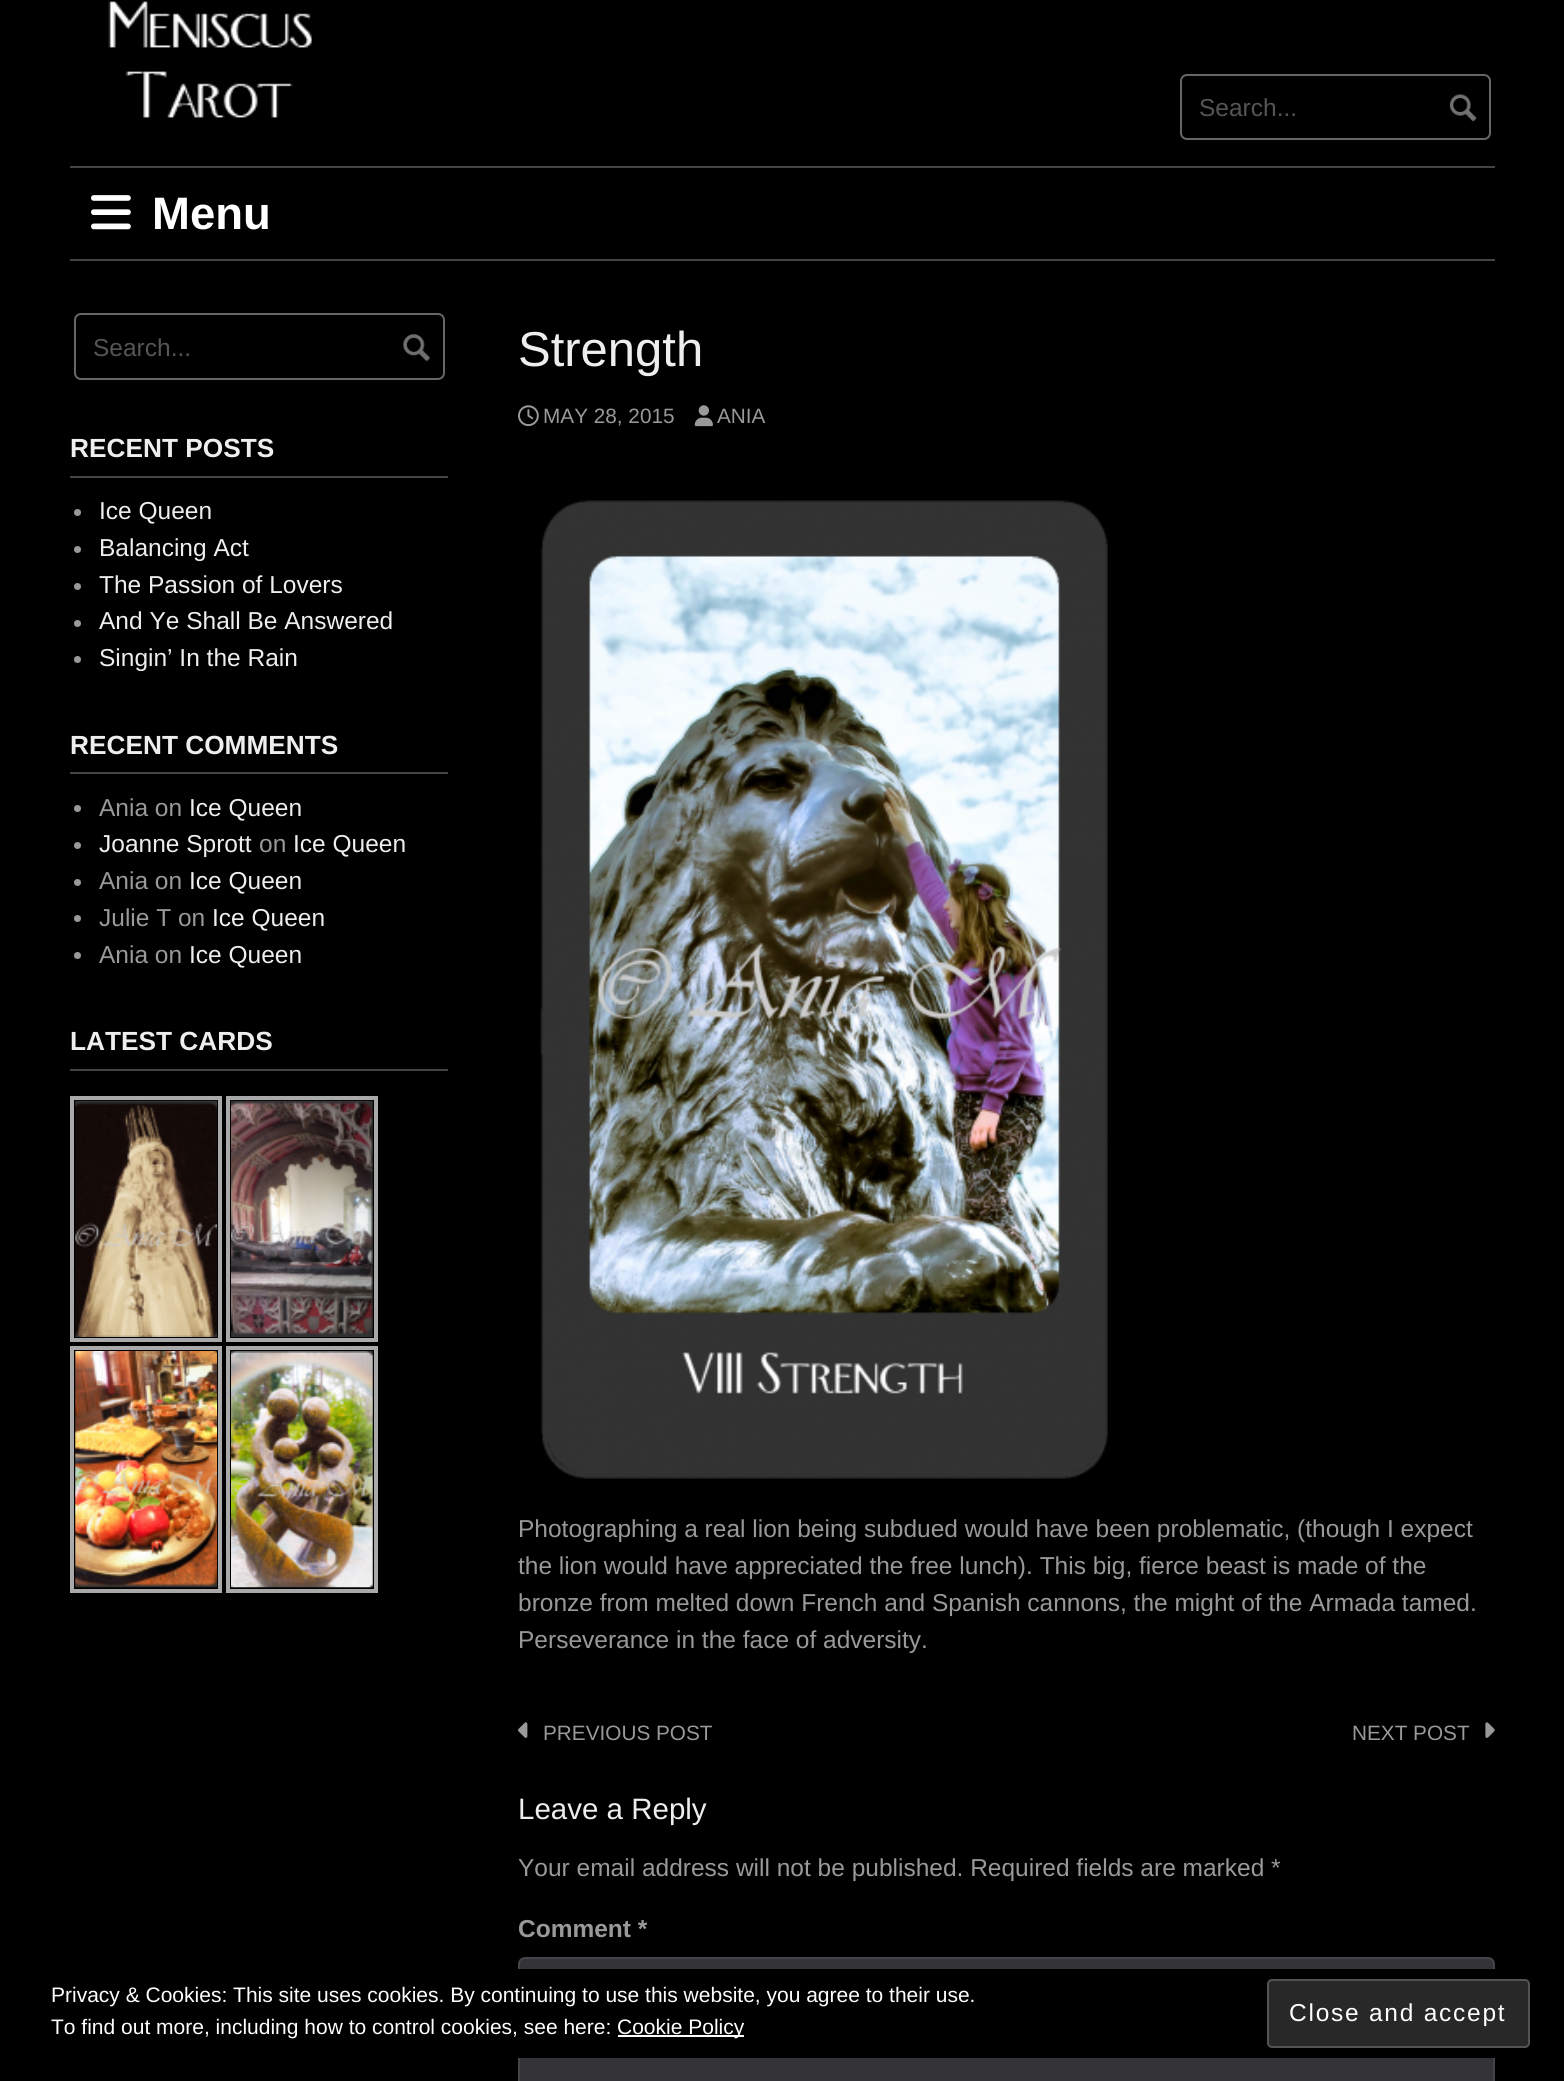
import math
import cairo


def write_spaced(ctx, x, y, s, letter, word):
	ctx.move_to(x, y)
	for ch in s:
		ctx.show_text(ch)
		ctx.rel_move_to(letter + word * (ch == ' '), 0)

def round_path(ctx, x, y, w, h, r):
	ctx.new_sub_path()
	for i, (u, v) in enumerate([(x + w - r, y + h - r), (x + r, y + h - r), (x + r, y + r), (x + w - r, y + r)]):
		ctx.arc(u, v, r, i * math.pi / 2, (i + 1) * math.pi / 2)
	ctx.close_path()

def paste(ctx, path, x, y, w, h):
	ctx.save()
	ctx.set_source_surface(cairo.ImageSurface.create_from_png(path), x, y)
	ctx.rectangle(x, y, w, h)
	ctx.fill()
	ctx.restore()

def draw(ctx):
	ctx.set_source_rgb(0, 0, 0)
	ctx.paint()
	paste(ctx, 'media/1.png', 108, 1, 204, 117)
	round_path(ctx, 1181, 75, 309, 64, 6)
	ctx.set_source_rgb(0.4, 0.4, 0.4)
	ctx.stroke()
	ctx.select_font_face('Liberation Sans')
	ctx.set_font_size(24.5)
	ctx.set_source_rgb(0.333, 0.333, 0.333)
	ctx.move_to(1199, 116)
	ctx.show_text('Search...')
	paste(ctx, 'media/2.png', 1449, 94, 28, 28)
	ctx.set_source_rgb(0.267, 0.267, 0.267)
	ctx.rectangle(70, 166, 1425, 2)
	ctx.fill()
	ctx.rectangle(70, 259, 1425, 2)
	ctx.fill()
	paste(ctx, 'media/3.png', 91, 195, 40, 35)
	ctx.select_font_face('Liberation Sans', cairo.FONT_SLANT_NORMAL, cairo.FONT_WEIGHT_BOLD)
	ctx.set_font_size(45.5)
	ctx.set_source_rgb(1, 1, 1)
	ctx.move_to(152, 229)
	ctx.show_text('Menu')
	round_path(ctx, 75, 314, 369, 65, 6)
	ctx.set_source_rgb(0.4, 0.4, 0.4)
	ctx.stroke()
	ctx.select_font_face('Liberation Sans')
	ctx.set_font_size(24.5)
	ctx.set_source_rgb(0.333, 0.333, 0.333)
	ctx.move_to(93, 356)
	ctx.show_text('Search...')
	paste(ctx, 'media/4.png', 403, 334, 27, 28)
	ctx.set_source_rgb(0.267, 0.267, 0.267)
	ctx.rectangle(70, 476, 378, 2)
	ctx.fill()
	ctx.select_font_face('Liberation Sans', cairo.FONT_SLANT_NORMAL, cairo.FONT_WEIGHT_BOLD)
	ctx.set_font_size(26.25)
	ctx.set_source_rgb(0.933, 0.933, 0.933)
	ctx.move_to(70, 457)
	ctx.show_text('RECENT POSTS')
	ctx.set_source_rgb(0.6, 0.6, 0.6)
	ctx.new_path()
	ctx.arc(77.5, 512.5, 3.5, 0, 2 * math.pi)
	ctx.fill()
	ctx.select_font_face('Liberation Sans')
	ctx.set_font_size(24.5)
	ctx.set_source_rgb(0.933, 0.933, 0.933)
	ctx.move_to(99, 519)
	ctx.show_text('Ice Queen')
	ctx.set_source_rgb(0.6, 0.6, 0.6)
	ctx.new_path()
	ctx.arc(77.5, 549.5, 3.5, 0, 2 * math.pi)
	ctx.fill()
	ctx.set_source_rgb(0.933, 0.933, 0.933)
	ctx.move_to(99, 556)
	ctx.show_text('Balancing Act')
	ctx.set_source_rgb(0.6, 0.6, 0.6)
	ctx.new_path()
	ctx.arc(77.5, 586.5, 3.5, 0, 2 * math.pi)
	ctx.fill()
	ctx.set_source_rgb(0.933, 0.933, 0.933)
	ctx.move_to(99, 593)
	ctx.show_text('The Passion of Lovers')
	ctx.set_source_rgb(0.6, 0.6, 0.6)
	ctx.new_path()
	ctx.arc(77.5, 623.5, 3.5, 0, 2 * math.pi)
	ctx.fill()
	ctx.set_source_rgb(0.933, 0.933, 0.933)
	ctx.move_to(99, 629)
	ctx.show_text('And Ye Shall Be Answered')
	ctx.set_source_rgb(0.6, 0.6, 0.6)
	ctx.new_path()
	ctx.arc(77.5, 659.5, 3.5, 0, 2 * math.pi)
	ctx.fill()
	ctx.set_source_rgb(0.933, 0.933, 0.933)
	ctx.move_to(99, 666)
	ctx.show_text('Singin’ In the Rain')
	ctx.set_source_rgb(0.267, 0.267, 0.267)
	ctx.rectangle(70, 772, 378, 2)
	ctx.fill()
	ctx.select_font_face('Liberation Sans', cairo.FONT_SLANT_NORMAL, cairo.FONT_WEIGHT_BOLD)
	ctx.set_font_size(26.25)
	ctx.set_source_rgb(0.933, 0.933, 0.933)
	ctx.move_to(70, 754)
	ctx.show_text('RECENT COMMENTS')
	ctx.set_source_rgb(0.6, 0.6, 0.6)
	ctx.new_path()
	ctx.arc(77.5, 808.5, 3.5, 0, 2 * math.pi)
	ctx.fill()
	ctx.select_font_face('Liberation Sans')
	ctx.set_font_size(24.5)
	ctx.move_to(99, 816)
	ctx.show_text('Ania on')
	ctx.set_source_rgb(0.933, 0.933, 0.933)
	ctx.move_to(189, 816)
	ctx.show_text('Ice Queen')
	ctx.set_source_rgb(0.6, 0.6, 0.6)
	ctx.new_path()
	ctx.arc(77.5, 845.5, 3.5, 0, 2 * math.pi)
	ctx.fill()
	ctx.set_source_rgb(0.933, 0.933, 0.933)
	ctx.move_to(99, 852)
	ctx.show_text('Joanne Sprott')
	ctx.set_source_rgb(0.6, 0.6, 0.6)
	ctx.move_to(259, 852)
	ctx.show_text('on')
	ctx.set_source_rgb(0.933, 0.933, 0.933)
	ctx.move_to(293, 852)
	ctx.show_text('Ice Queen')
	ctx.set_source_rgb(0.6, 0.6, 0.6)
	ctx.new_path()
	ctx.arc(77.5, 882.5, 3.5, 0, 2 * math.pi)
	ctx.fill()
	ctx.move_to(99, 889)
	ctx.show_text('Ania on')
	ctx.set_source_rgb(0.933, 0.933, 0.933)
	ctx.move_to(189, 889)
	ctx.show_text('Ice Queen')
	ctx.set_source_rgb(0.6, 0.6, 0.6)
	ctx.new_path()
	ctx.arc(77.5, 918.5, 3.5, 0, 2 * math.pi)
	ctx.fill()
	ctx.move_to(99, 926)
	ctx.show_text('Julie T on')
	ctx.set_source_rgb(0.933, 0.933, 0.933)
	ctx.move_to(212, 926)
	ctx.show_text('Ice Queen')
	ctx.set_source_rgb(0.6, 0.6, 0.6)
	ctx.new_path()
	ctx.arc(77.5, 955.5, 3.5, 0, 2 * math.pi)
	ctx.fill()
	ctx.move_to(99, 963)
	ctx.show_text('Ania on')
	ctx.set_source_rgb(0.933, 0.933, 0.933)
	ctx.move_to(189, 963)
	ctx.show_text('Ice Queen')
	ctx.set_source_rgb(0.267, 0.267, 0.267)
	ctx.rectangle(70, 1069, 378, 2)
	ctx.fill()
	ctx.select_font_face('Liberation Sans', cairo.FONT_SLANT_NORMAL, cairo.FONT_WEIGHT_BOLD)
	ctx.set_font_size(26.25)
	ctx.set_source_rgb(0.933, 0.933, 0.933)
	ctx.move_to(70, 1050)
	ctx.show_text('LATEST CARDS')
	ctx.rectangle(72, 1098, 148, 242)
	ctx.set_source_rgb(0.663, 0.663, 0.663)
	ctx.set_line_width(4)
	ctx.stroke()
	paste(ctx, 'media/5.png', 75, 1100, 142, 237)
	ctx.rectangle(228, 1098, 148, 242)
	ctx.stroke()
	paste(ctx, 'media/6.png', 231, 1100, 142, 237)
	ctx.rectangle(72, 1348, 148, 243)
	ctx.stroke()
	paste(ctx, 'media/7.png', 75, 1351, 142, 237)
	ctx.rectangle(228, 1348, 148, 243)
	ctx.stroke()
	paste(ctx, 'media/8.png', 231, 1351, 142, 237)
	ctx.select_font_face('Liberation Sans')
	ctx.set_font_size(49)
	ctx.set_source_rgb(0.933, 0.933, 0.933)
	ctx.move_to(518, 366)
	ctx.show_text('Strength')
	paste(ctx, 'media/9.png', 518, 405, 21, 22)
	ctx.set_font_size(20.75)
	ctx.set_source_rgb(0.6, 0.6, 0.6)
	ctx.move_to(543, 423)
	ctx.show_text('MAY 28, 2015')
	paste(ctx, 'media/10.png', 694, 405, 19, 22)
	ctx.move_to(717, 423)
	ctx.show_text('ANIA')
	paste(ctx, 'media/11.png', 540, 500, 568, 979)
	ctx.set_font_size(24.5)
	for x, y, s in [
		(518, 1537, 'Photographing a real lion being subdued would have been problematic, (though I expect'),
		(518, 1574, 'the lion would have appreciated the free lunch). This big, fierce beast is made of the'),
		(518, 1611, 'bronze from melted down French and Spanish cannons, the might of the Armada tamed.'),
		(518, 1648, 'Perseverance in the face of adversity.'),
	]:
		ctx.move_to(x, y)
		ctx.show_text(s)
	paste(ctx, 'media/12.png', 518, 1722, 10, 16)
	ctx.set_font_size(20.75)
	ctx.move_to(543, 1740)
	ctx.show_text('PREVIOUS POST')
	ctx.move_to(1352, 1740)
	ctx.show_text('NEXT POST')
	paste(ctx, 'media/13.png', 1485, 1722, 10, 16)
	ctx.set_font_size(29.5)
	ctx.set_source_rgb(0.933, 0.933, 0.933)
	ctx.move_to(518, 1819)
	ctx.show_text('Leave a Reply')
	ctx.set_font_size(24.5)
	ctx.set_source_rgb(0.6, 0.6, 0.6)
	ctx.move_to(518, 1876)
	ctx.show_text('Your email address will not be published. Required fields are marked *')
	ctx.select_font_face('Liberation Sans', cairo.FONT_SLANT_NORMAL, cairo.FONT_WEIGHT_BOLD)
	ctx.move_to(518, 1937)
	ctx.show_text('Comment *')
	ctx.set_source_rgb(0.2, 0.2, 0.22)
	round_path(ctx, 519, 1958, 975, 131, 6)
	ctx.fill_preserve()
	ctx.set_source_rgb(0.267, 0.267, 0.286)
	ctx.set_line_width(2)
	ctx.stroke()
	ctx.set_source_rgb(0, 0, 0)
	ctx.rectangle(518, 1969, 977, 89)
	ctx.fill()
	ctx.select_font_face('Liberation Sans')
	ctx.set_font_size(21)
	ctx.set_source_rgb(1, 1, 1)
	ctx.move_to(51, 2002)
	ctx.show_text('Privacy & Cookies: This site uses cookies. By continuing to use this website, you agree to their use.')
	ctx.move_to(51, 2034)
	ctx.show_text('To find out more, including how to control cookies, see here:')
	ctx.rectangle(618, 2035, 126, 2)
	ctx.fill()
	ctx.move_to(617, 2034)
	ctx.show_text('Cookie Policy')
	ctx.set_source_rgb(0.157, 0.157, 0.157)
	round_path(ctx, 1268, 1980, 261, 67, 4)
	ctx.fill_preserve()
	ctx.set_source_rgb(0.325, 0.325, 0.325)
	ctx.stroke()
	ctx.set_font_size(24.5)
	ctx.set_source_rgb(1, 1, 1)
	write_spaced(ctx, 1289, 2021, 'Close and accept', 1.75, 0)


surface = cairo.ImageSurface(cairo.FORMAT_RGB24, 1564, 2081)
ctx = cairo.Context(surface)
options = cairo.FontOptions()
options.set_hint_metrics(cairo.HINT_METRICS_OFF)
options.set_hint_style(cairo.HINT_STYLE_NONE)
ctx.set_font_options(options)
ctx.set_miter_limit(4)
draw(ctx)
surface.write_to_png('image.png')
